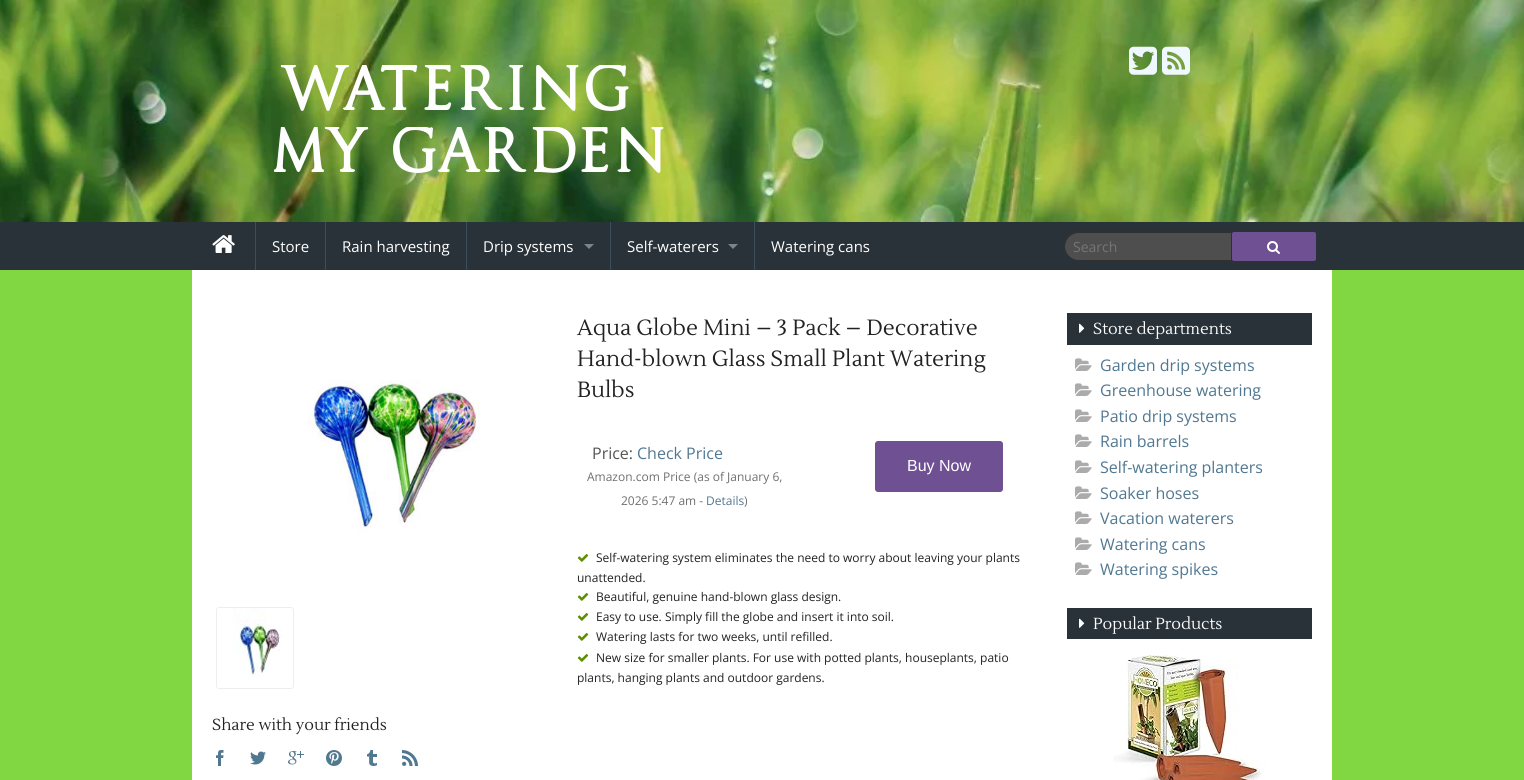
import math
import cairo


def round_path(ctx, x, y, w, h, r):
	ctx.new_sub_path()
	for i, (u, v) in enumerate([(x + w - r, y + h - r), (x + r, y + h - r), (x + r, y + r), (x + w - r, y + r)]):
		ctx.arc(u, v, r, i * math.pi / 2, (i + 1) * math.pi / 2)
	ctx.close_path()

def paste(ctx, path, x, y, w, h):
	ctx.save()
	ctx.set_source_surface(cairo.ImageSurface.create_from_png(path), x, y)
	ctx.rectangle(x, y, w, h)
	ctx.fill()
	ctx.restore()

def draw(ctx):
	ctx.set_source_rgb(0.506, 0.843, 0.259)
	ctx.paint()
	paste(ctx, 'media/1.png', 0, 0, 1524, 222)
	paste(ctx, 'media/2.png', 1129, 46, 28, 29)
	paste(ctx, 'media/3.png', 1162, 46, 28, 29)
	paste(ctx, 'media/4.png', 274, 65, 390, 108)
	ctx.set_source_rgb(0.161, 0.196, 0.224)
	ctx.rectangle(0, 222, 1524, 48)
	ctx.fill()
	paste(ctx, 'media/5.png', 212, 235, 23, 18)
	ctx.set_source_rgb(0.247, 0.302, 0.345)
	ctx.rectangle(255, 222, 1, 48)
	ctx.fill()
	ctx.select_font_face('Open Sans')
	ctx.set_font_size(15)
	ctx.set_source_rgb(1, 1, 1)
	ctx.move_to(272, 252)
	ctx.show_text('Store')
	ctx.set_source_rgb(0.247, 0.302, 0.345)
	ctx.rectangle(325, 222, 1, 48)
	ctx.fill()
	ctx.set_source_rgb(1, 1, 1)
	ctx.move_to(342, 252)
	ctx.show_text('Rain harvesting')
	ctx.set_source_rgb(0.247, 0.302, 0.345)
	ctx.rectangle(466, 222, 1, 48)
	ctx.fill()
	ctx.set_source_rgb(1, 1, 1)
	ctx.move_to(483, 252)
	ctx.show_text('Drip systems')
	ctx.set_source_rgb(0.498, 0.518, 0.533)
	ctx.new_path()
	ctx.move_to(584, 244)
	ctx.line_to(594, 244)
	ctx.line_to(589, 249)
	ctx.close_path()
	ctx.fill()
	ctx.set_source_rgb(0.247, 0.302, 0.345)
	ctx.rectangle(610, 222, 1, 48)
	ctx.fill()
	ctx.set_source_rgb(1, 1, 1)
	ctx.move_to(627, 252)
	ctx.show_text('Self-waterers')
	ctx.set_source_rgb(0.498, 0.518, 0.533)
	ctx.new_path()
	ctx.move_to(728, 244)
	ctx.line_to(738, 244)
	ctx.line_to(733, 249)
	ctx.close_path()
	ctx.fill()
	ctx.set_source_rgb(0.247, 0.302, 0.345)
	ctx.rectangle(754, 222, 1, 48)
	ctx.fill()
	ctx.set_source_rgb(1, 1, 1)
	ctx.move_to(771, 252)
	ctx.show_text('Watering cans')
	ctx.set_source_rgb(0.306, 0.306, 0.306)
	ctx.new_path()
	ctx.move_to(1078.5, 232.5)
	ctx.line_to(1231.5, 232.5)
	ctx.line_to(1231.5, 260.5)
	ctx.line_to(1078.5, 260.5)
	ctx.curve_to(1071, 260.5, 1064.5, 254, 1064.5, 246.5)
	ctx.curve_to(1064.5, 239, 1071, 232.5, 1078.5, 232.5)
	ctx.close_path()
	ctx.fill_preserve()
	ctx.set_source_rgb(0.188, 0.188, 0.188)
	ctx.set_line_width(1)
	ctx.stroke()
	ctx.set_font_size(14)
	ctx.set_source_rgb(0.459, 0.459, 0.459)
	ctx.move_to(1073, 252)
	ctx.show_text('Search')
	ctx.set_source_rgb(0.435, 0.314, 0.573)
	round_path(ctx, 1232, 232, 84, 29, 2)
	ctx.fill()
	paste(ctx, 'media/6.png', 1267, 241, 13, 13)
	ctx.set_source_rgb(1, 1, 1)
	ctx.rectangle(192, 270, 1140, 510)
	ctx.fill()
	paste(ctx, 'media/7.png', 307, 380, 173, 153)
	round_path(ctx, 216.5, 607.5, 77, 81, 2.5)
	ctx.set_source_rgb(0.933, 0.933, 0.933)
	ctx.stroke()
	paste(ctx, 'media/8.png', 233, 608, 49, 69)
	ctx.select_font_face('Lustria')
	ctx.set_font_size(22)
	ctx.set_source_rgb(0.133, 0.133, 0.133)
	for x, y, s in [
		(577, 335, 'Aqua Globe Mini – 3 Pack – Decorative'),
		(577, 366, 'Hand-blown Glass Small Plant Watering'),
		(577, 397, 'Bulbs'),
	]:
		ctx.move_to(x, y)
		ctx.show_text(s)
	ctx.select_font_face('Open Sans')
	ctx.set_font_size(16)
	ctx.set_source_rgb(0.333, 0.333, 0.333)
	ctx.move_to(592, 459)
	ctx.show_text('Price:')
	ctx.set_source_rgb(0.318, 0.471, 0.569)
	ctx.move_to(637, 459)
	ctx.show_text('Check Price')
	ctx.set_font_size(12)
	ctx.set_source_rgb(0.435, 0.435, 0.435)
	ctx.move_to(587, 481)
	ctx.show_text('Amazon.com Price (as of January 6,')
	ctx.move_to(621, 505)
	ctx.show_text('2026 5:47 am -')
	ctx.set_source_rgb(0.318, 0.471, 0.569)
	ctx.move_to(706, 505)
	ctx.show_text('Details')
	ctx.set_source_rgb(0.435, 0.435, 0.435)
	ctx.move_to(744, 505)
	ctx.show_text(')')
	ctx.set_source_rgb(0.435, 0.314, 0.573)
	round_path(ctx, 875, 441, 128, 51, 3)
	ctx.fill()
	ctx.select_font_face('Liberation Sans')
	ctx.set_font_size(16)
	ctx.set_source_rgb(1, 1, 1)
	ctx.move_to(907, 471)
	ctx.show_text('Buy Now')
	paste(ctx, 'media/9.png', 577, 554, 12, 8)
	ctx.select_font_face('Open Sans')
	ctx.set_font_size(12)
	ctx.set_source_rgb(0.133, 0.133, 0.133)
	ctx.move_to(596, 562)
	ctx.show_text('Self-watering system eliminates the need to worry about leaving your plants')
	ctx.move_to(577, 582)
	ctx.show_text('unattended.')
	paste(ctx, 'media/9.png', 577, 593, 12, 8)
	ctx.move_to(596, 601)
	ctx.show_text('Beautiful, genuine hand-blown glass design.')
	paste(ctx, 'media/9.png', 577, 613, 12, 8)
	ctx.move_to(596, 621)
	ctx.show_text('Easy to use. Simply fill the globe and insert it into soil.')
	paste(ctx, 'media/9.png', 577, 633, 12, 8)
	ctx.move_to(596, 641)
	ctx.show_text('Watering lasts for two weeks, until refilled.')
	paste(ctx, 'media/9.png', 577, 654, 12, 8)
	ctx.move_to(596, 662)
	ctx.show_text('New size for smaller plants. For use with potted plants, houseplants, patio')
	ctx.move_to(577, 682)
	ctx.show_text('plants, hanging plants and outdoor gardens.')
	ctx.select_font_face('Lustria')
	ctx.set_font_size(16)
	ctx.move_to(212, 730)
	ctx.show_text('Share with your friends')
	paste(ctx, 'media/10.png', 216, 750, 8, 16)
	paste(ctx, 'media/11.png', 250, 751, 16, 14)
	paste(ctx, 'media/12.png', 288, 751, 16, 14)
	paste(ctx, 'media/13.png', 326, 750, 16, 16)
	paste(ctx, 'media/14.png', 367, 750, 10, 16)
	paste(ctx, 'media/15.png', 402, 750, 16, 16)
	ctx.set_source_rgb(0.161, 0.196, 0.224)
	ctx.rectangle(1067, 313, 245, 32)
	ctx.fill()
	paste(ctx, 'media/16.png', 1079, 323, 6, 10)
	ctx.set_source_rgb(1, 1, 1)
	ctx.move_to(1093, 334)
	ctx.show_text('Store departments')
	paste(ctx, 'media/17.png', 1075, 358, 17, 13)
	ctx.select_font_face('Open Sans')
	ctx.set_source_rgb(0.318, 0.471, 0.569)
	ctx.move_to(1100, 371)
	ctx.show_text('Garden drip systems')
	paste(ctx, 'media/17.png', 1075, 383, 17, 13)
	ctx.move_to(1100, 396)
	ctx.show_text('Greenhouse watering')
	paste(ctx, 'media/17.png', 1075, 409, 17, 13)
	ctx.move_to(1100, 422)
	ctx.show_text('Patio drip systems')
	paste(ctx, 'media/17.png', 1075, 434, 17, 13)
	ctx.move_to(1100, 447)
	ctx.show_text('Rain barrels')
	paste(ctx, 'media/17.png', 1075, 460, 17, 13)
	ctx.move_to(1100, 473)
	ctx.show_text('Self-watering planters')
	paste(ctx, 'media/17.png', 1075, 486, 17, 13)
	ctx.move_to(1100, 499)
	ctx.show_text('Soaker hoses')
	paste(ctx, 'media/17.png', 1075, 511, 17, 13)
	ctx.move_to(1100, 524)
	ctx.show_text('Vacation waterers')
	paste(ctx, 'media/17.png', 1075, 537, 17, 13)
	ctx.move_to(1100, 550)
	ctx.show_text('Watering cans')
	paste(ctx, 'media/17.png', 1075, 562, 17, 13)
	ctx.move_to(1100, 575)
	ctx.show_text('Watering spikes')
	ctx.set_source_rgb(0.161, 0.196, 0.224)
	ctx.rectangle(1067, 608, 245, 31)
	ctx.fill()
	paste(ctx, 'media/16.png', 1079, 618, 6, 10)
	ctx.select_font_face('Lustria')
	ctx.set_source_rgb(1, 1, 1)
	ctx.move_to(1093, 629)
	ctx.show_text('Popular Products')
	paste(ctx, 'media/18.png', 1113, 655, 153, 125)


surface = cairo.ImageSurface(cairo.FORMAT_RGB24, 1524, 780)
ctx = cairo.Context(surface)
options = cairo.FontOptions()
options.set_hint_metrics(cairo.HINT_METRICS_OFF)
options.set_hint_style(cairo.HINT_STYLE_NONE)
ctx.set_font_options(options)
ctx.set_miter_limit(4)
draw(ctx)
surface.write_to_png('image.png')
